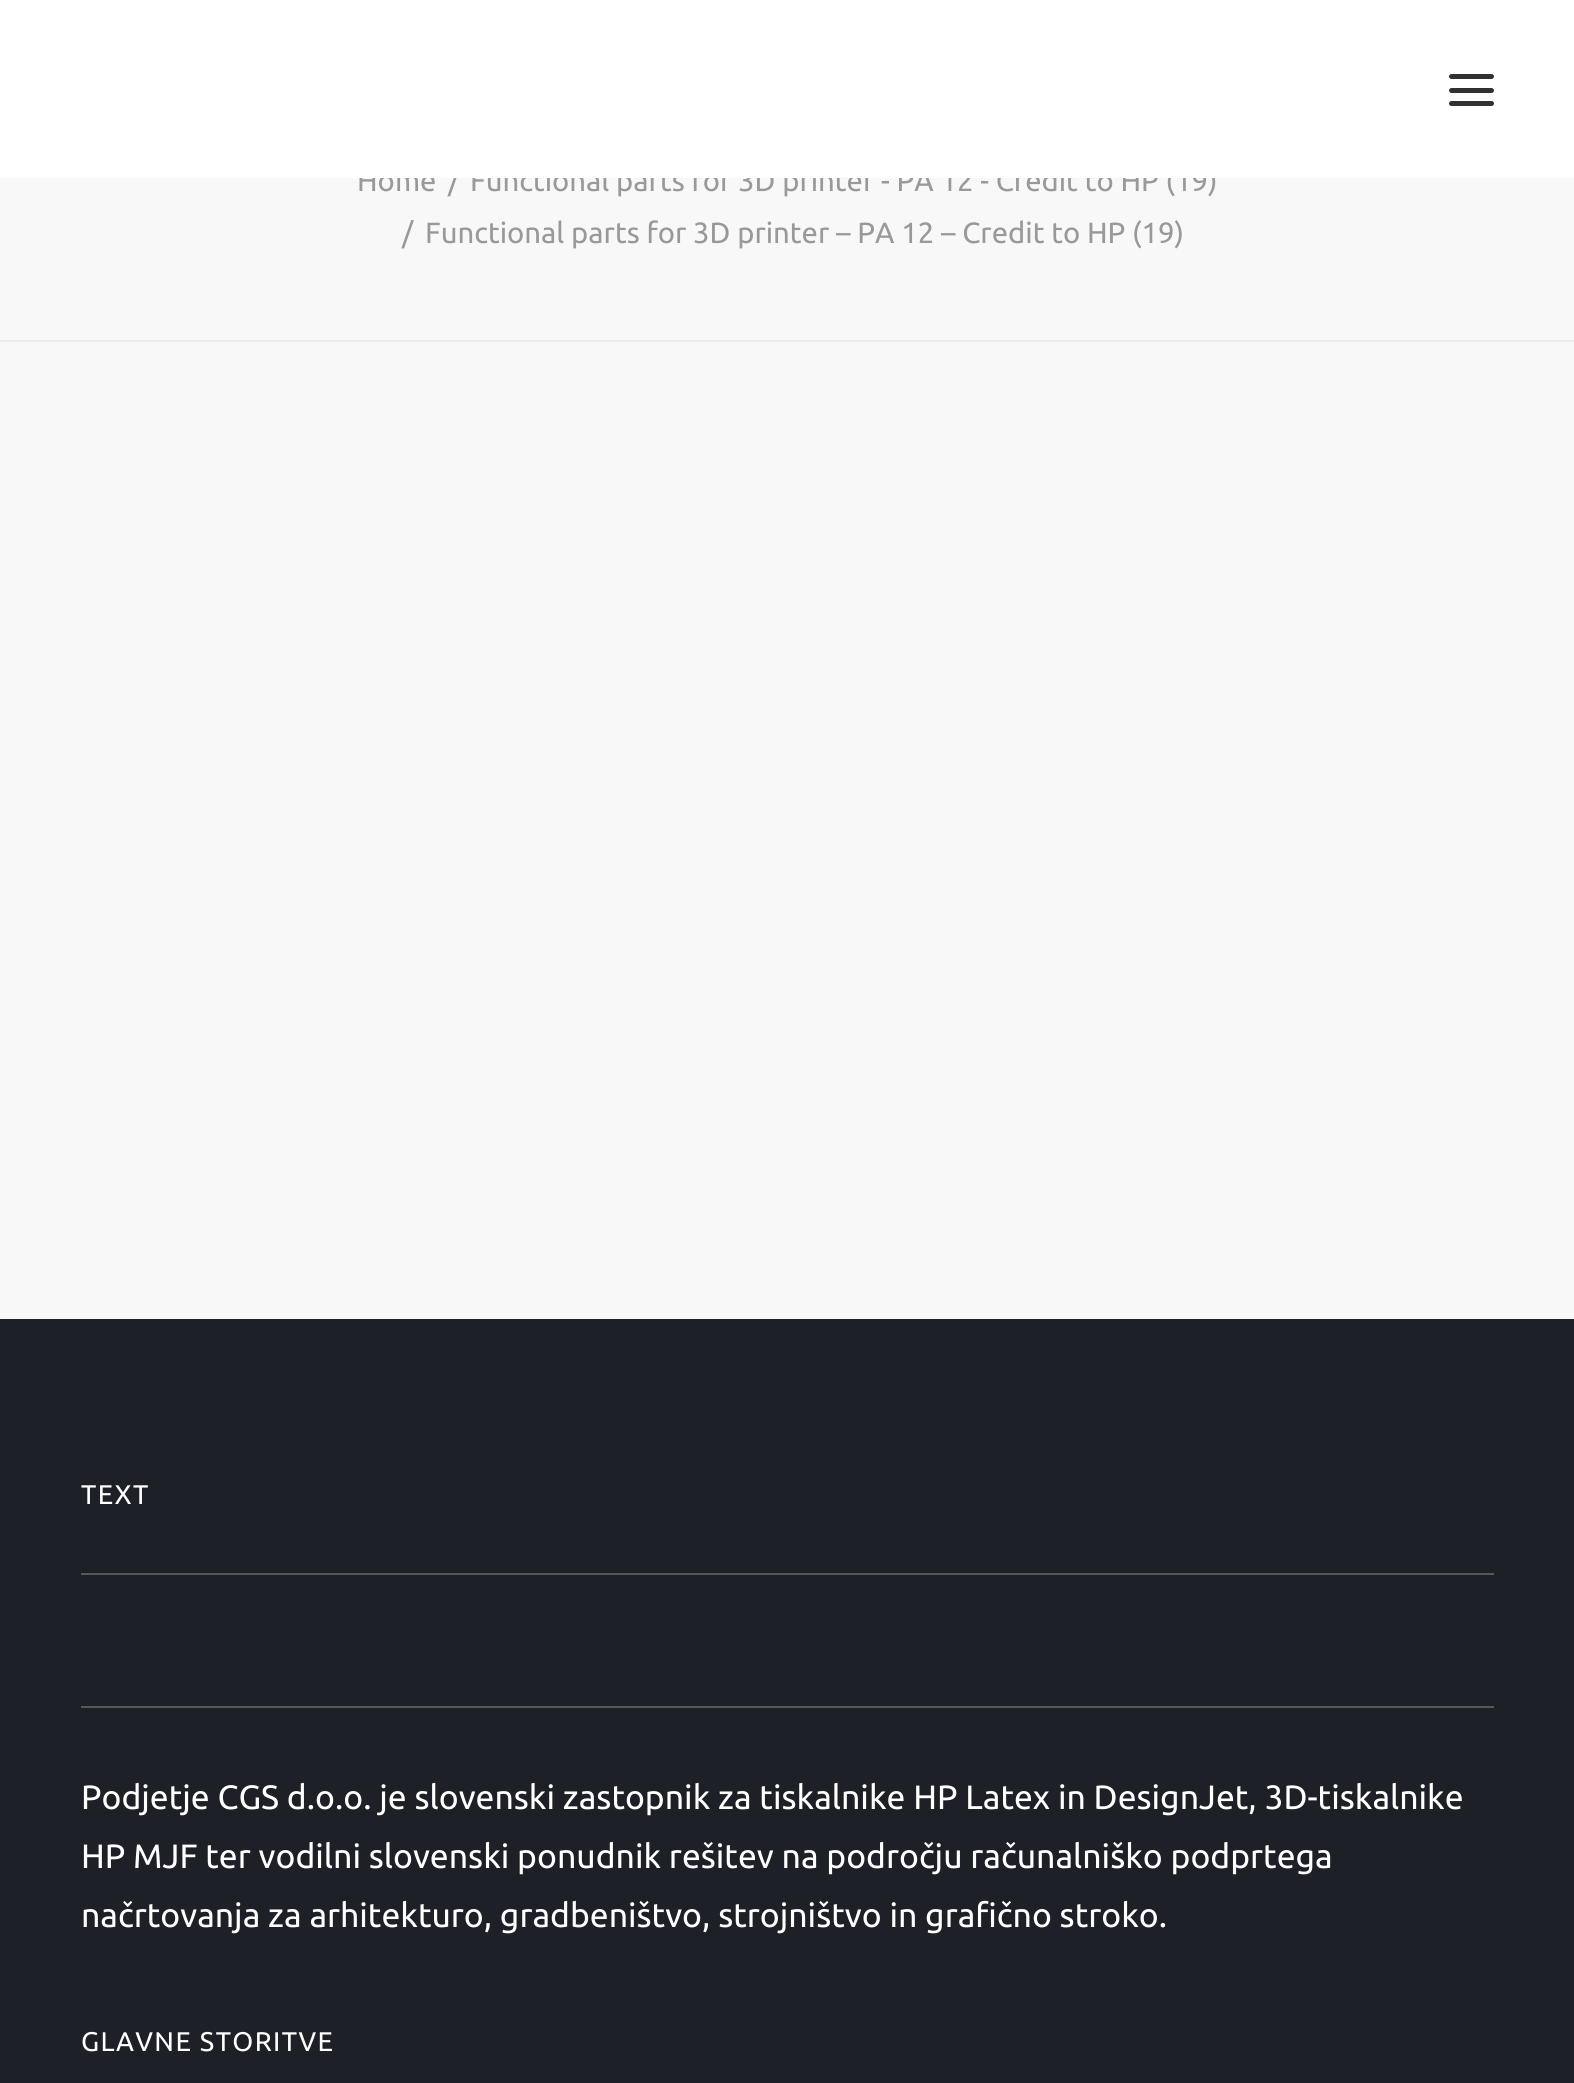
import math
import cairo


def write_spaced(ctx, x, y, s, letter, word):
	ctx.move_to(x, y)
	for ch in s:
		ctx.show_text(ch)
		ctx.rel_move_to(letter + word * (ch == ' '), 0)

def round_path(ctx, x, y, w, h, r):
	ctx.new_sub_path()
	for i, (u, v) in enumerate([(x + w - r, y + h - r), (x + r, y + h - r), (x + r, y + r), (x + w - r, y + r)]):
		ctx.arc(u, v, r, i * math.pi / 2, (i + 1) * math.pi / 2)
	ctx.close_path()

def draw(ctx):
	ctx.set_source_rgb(0.969, 0.969, 0.969)
	ctx.paint()
	ctx.select_font_face('Ubuntu')
	ctx.set_font_size(29.25)
	ctx.set_source_rgb(0.6, 0.6, 0.6)
	for x, y, s in [
		(357, 191, 'Home'),
		(448, 191, '/'),
		(470, 191, 'Functional parts for 3D printer - PA 12 - Credit to HP (19)'),
	]:
		ctx.move_to(x, y)
		ctx.show_text(s)
	ctx.set_source_rgb(1, 1, 1)
	ctx.rectangle(0, 0, 1574, 178)
	ctx.fill()
	ctx.set_source_rgb(0.188, 0.192, 0.2)
	round_path(ctx, 1449, 88, 45, 5, 2.5)
	ctx.fill()
	round_path(ctx, 1449, 74, 45, 5, 2.5)
	ctx.fill()
	round_path(ctx, 1449, 101, 45, 5, 2.5)
	ctx.fill()
	ctx.set_source_rgb(0.918, 0.918, 0.918)
	ctx.rectangle(0, 340, 1574, 2)
	ctx.fill()
	ctx.set_source_rgb(0.6, 0.6, 0.6)
	ctx.move_to(402, 243)
	ctx.show_text('/')
	ctx.move_to(425, 243)
	ctx.show_text('Functional parts for 3D printer – PA 12 – Credit to HP (19)')
	ctx.set_source_rgb(0.114, 0.125, 0.153)
	ctx.rectangle(0, 1319, 1574, 764)
	ctx.fill()
	ctx.set_source_rgb(0.337, 0.345, 0.365)
	ctx.rectangle(81, 1573, 1413, 2)
	ctx.fill()
	ctx.set_font_size(27)
	ctx.set_source_rgb(1, 1, 1)
	write_spaced(ctx, 81, 1504, 'TEXT', 1.4, 0)
	ctx.set_source_rgb(0.337, 0.345, 0.365)
	ctx.rectangle(81, 1706, 1413, 2)
	ctx.fill()
	ctx.set_font_size(33.75)
	ctx.set_source_rgb(1, 1, 1)
	for x, y, s in [
		(81, 1809, 'Podjetje CGS d.o.o. je slovenski zastopnik za tiskalnike HP Latex in DesignJet, 3D-tiskalnike'),
		(81, 1868, 'HP MJF ter vodilni slovenski ponudnik rešitev na področju računalniško podprtega'),
		(81, 1927, 'načrtovanja za arhitekturo, gradbeništvo, strojništvo in grafično stroko.'),
	]:
		ctx.move_to(x, y)
		ctx.show_text(s)
	ctx.set_font_size(27)
	write_spaced(ctx, 81, 2051, 'GLAVNE STORITVE', 1.4, 0)


surface = cairo.ImageSurface(cairo.FORMAT_RGB24, 1574, 2083)
ctx = cairo.Context(surface)
options = cairo.FontOptions()
options.set_hint_metrics(cairo.HINT_METRICS_OFF)
options.set_hint_style(cairo.HINT_STYLE_NONE)
ctx.set_font_options(options)
ctx.set_miter_limit(4)
draw(ctx)
surface.write_to_png('image.png')
